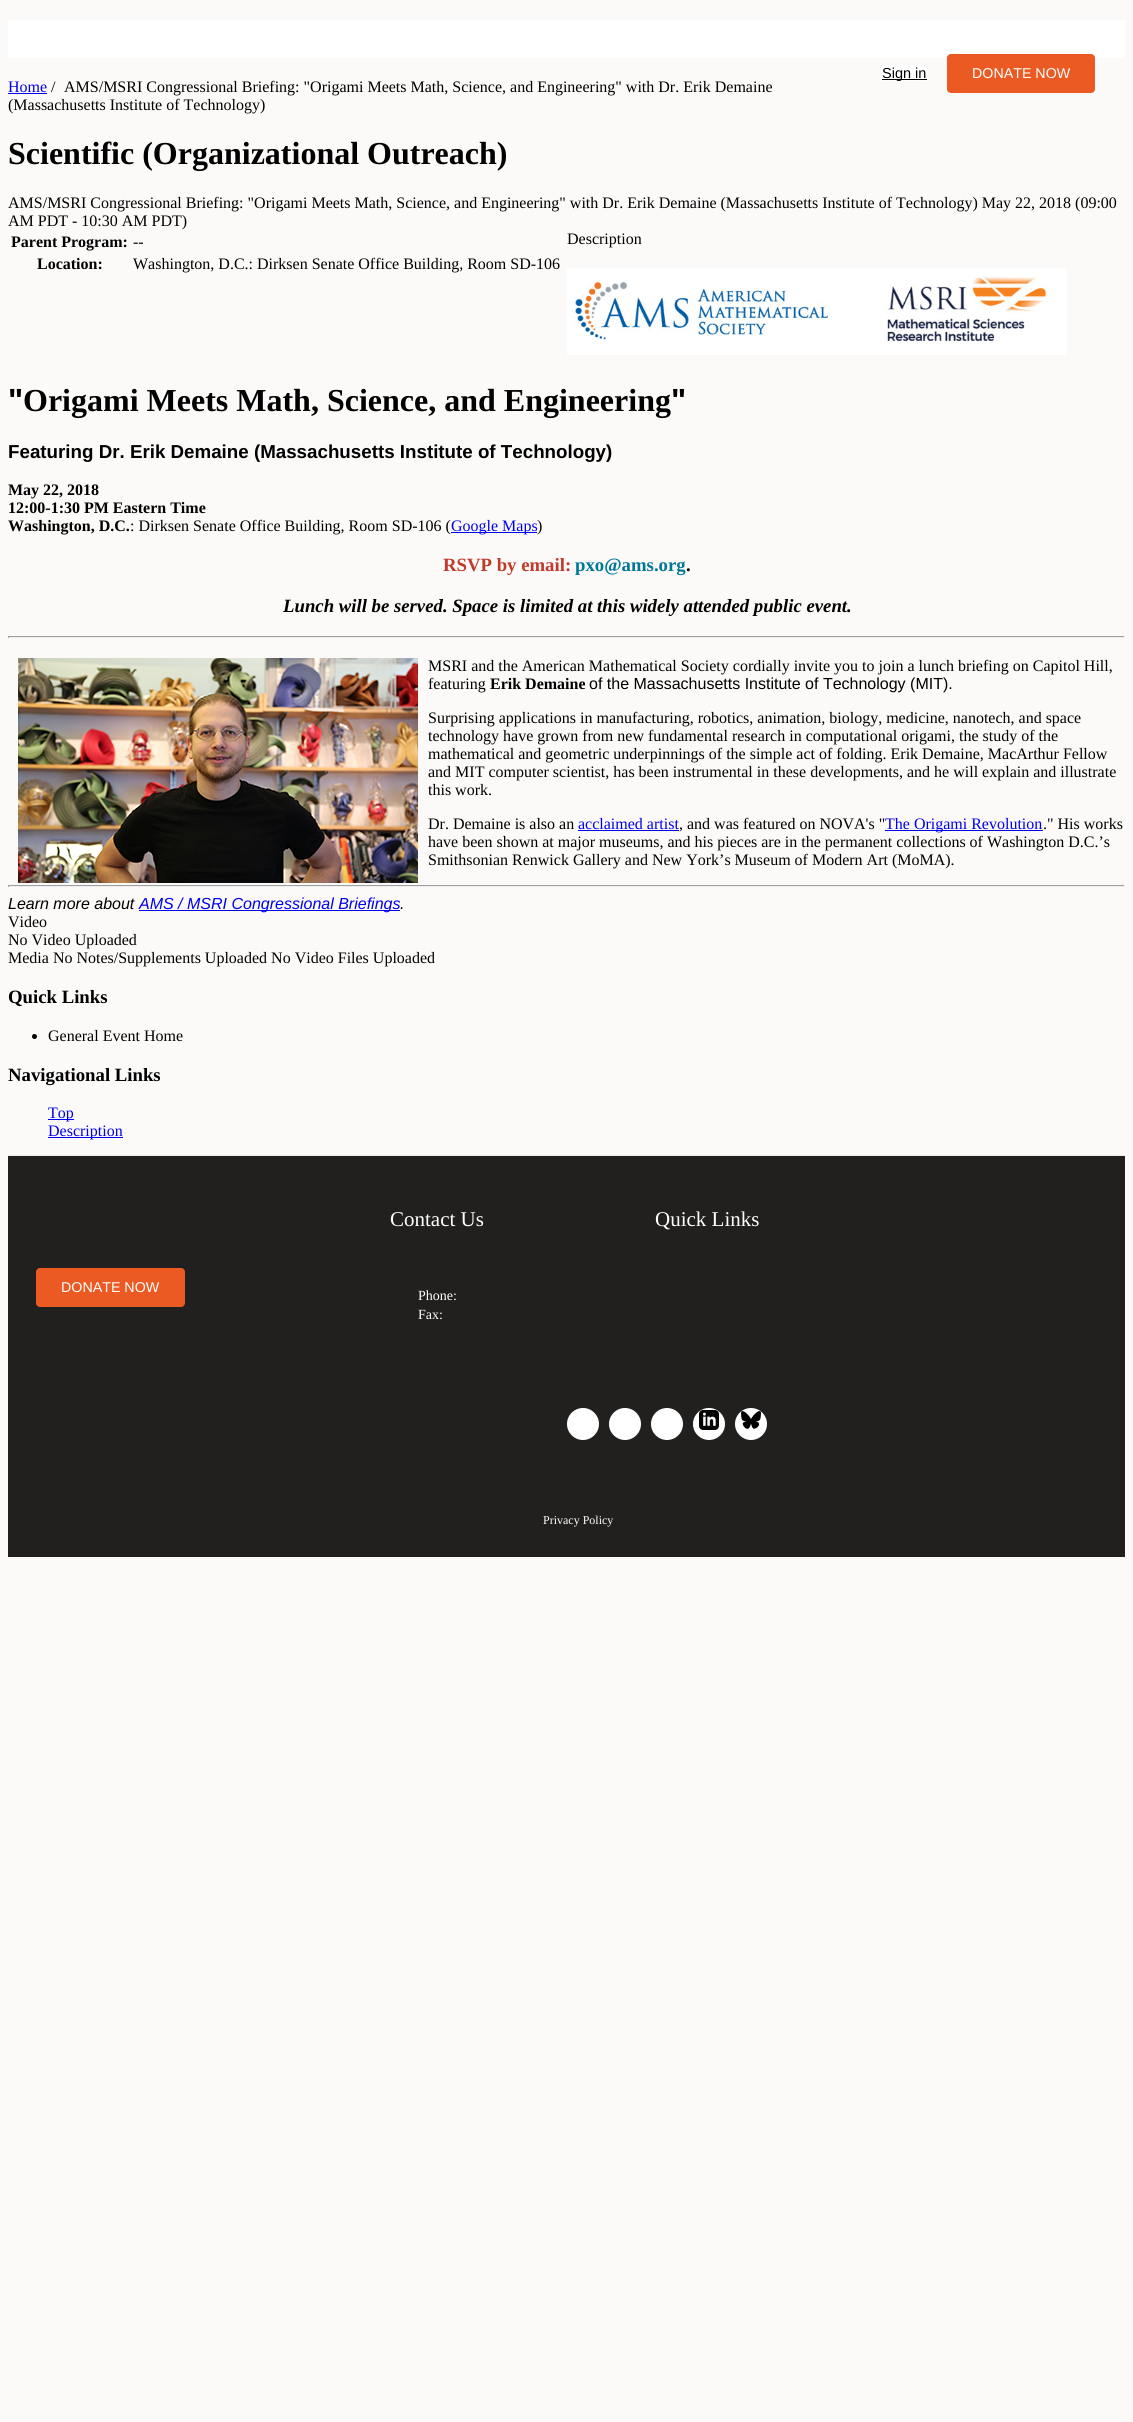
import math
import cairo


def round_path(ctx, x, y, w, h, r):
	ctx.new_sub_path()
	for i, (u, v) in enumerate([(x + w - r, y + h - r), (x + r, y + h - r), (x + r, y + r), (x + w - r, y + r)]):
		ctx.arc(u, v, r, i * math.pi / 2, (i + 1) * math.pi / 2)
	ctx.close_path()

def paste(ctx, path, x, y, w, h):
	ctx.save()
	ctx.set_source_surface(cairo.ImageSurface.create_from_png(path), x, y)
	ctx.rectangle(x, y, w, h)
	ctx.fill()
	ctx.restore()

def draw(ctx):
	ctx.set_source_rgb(0.988, 0.98, 0.973)
	ctx.paint()
	ctx.set_source_rgb(1, 1, 1)
	ctx.rectangle(8, 20, 1117, 38)
	ctx.rectangle(882, 65, 45, 16)
	ctx.fill()
	ctx.set_source_rgb(0, 0, 0)
	ctx.rectangle(882, 79, 45, 1)
	ctx.fill()
	ctx.select_font_face('Liberation Sans')
	ctx.set_font_size(14.5)
	ctx.move_to(882, 78)
	ctx.show_text('Sign in')
	ctx.set_source_rgb(0.922, 0.353, 0.137)
	round_path(ctx, 947, 54, 148, 39, 4)
	ctx.fill()
	ctx.set_font_size(14.25)
	ctx.set_source_rgb(1, 1, 1)
	ctx.move_to(972, 78)
	ctx.show_text('DONATE NOW')
	ctx.select_font_face('Liberation Serif')
	ctx.set_font_size(16)
	ctx.set_source_rgb(0, 0, 0.933)
	ctx.move_to(8, 92)
	ctx.show_text('Home')
	ctx.rectangle(8, 93, 39, 1)
	ctx.fill()
	ctx.set_source_rgb(0, 0, 0)
	for x, y, s in [
		(51, 92, '/'),
		(64, 92, 'AMS/MSRI Congressional Briefing: "Origami Meets Math, Science, and Engineering" with Dr. Erik Demaine'),
		(8, 110, '(Massachusetts Institute of Technology)'),
	]:
		ctx.move_to(x, y)
		ctx.show_text(s)
	ctx.select_font_face('Liberation Serif', cairo.FONT_SLANT_NORMAL, cairo.FONT_WEIGHT_BOLD)
	ctx.set_font_size(32)
	ctx.move_to(8, 164)
	ctx.show_text('Scientific (Organizational Outreach)')
	ctx.select_font_face('Liberation Serif')
	ctx.set_font_size(16)
	ctx.move_to(8, 208)
	ctx.show_text('AMS/MSRI Congressional Briefing: "Origami Meets Math, Science, and Engineering" with Dr. Erik Demaine (Massachusetts Institute of Technology) May 22, 2018 (09:00')
	ctx.move_to(8, 226)
	ctx.show_text('AM PDT - 10:30 AM PDT)')
	ctx.select_font_face('Liberation Serif', cairo.FONT_SLANT_NORMAL, cairo.FONT_WEIGHT_BOLD)
	ctx.move_to(11, 247)
	ctx.show_text('Parent Program:')
	ctx.select_font_face('Liberation Serif')
	ctx.move_to(133, 247)
	ctx.show_text('--')
	ctx.select_font_face('Liberation Serif', cairo.FONT_SLANT_NORMAL, cairo.FONT_WEIGHT_BOLD)
	ctx.move_to(37, 269)
	ctx.show_text('Location:')
	ctx.select_font_face('Liberation Serif')
	ctx.move_to(133, 269)
	ctx.show_text('Washington, D.C.: Dirksen Senate Office Building, Room SD-106')
	ctx.move_to(567, 244)
	ctx.show_text('Description')
	paste(ctx, 'media/1.png', 567, 268, 500, 87)
	ctx.select_font_face('Liberation Sans', cairo.FONT_SLANT_NORMAL, cairo.FONT_WEIGHT_BOLD)
	ctx.set_font_size(32)
	ctx.move_to(8, 411)
	ctx.show_text('"')
	ctx.select_font_face('Liberation Serif', cairo.FONT_SLANT_NORMAL, cairo.FONT_WEIGHT_BOLD)
	ctx.move_to(23, 411)
	ctx.show_text('Origami Meets Math, Science, and Engineering')
	ctx.select_font_face('Liberation Sans', cairo.FONT_SLANT_NORMAL, cairo.FONT_WEIGHT_BOLD)
	ctx.move_to(671, 411)
	ctx.show_text('"')
	ctx.set_font_size(18.75)
	ctx.move_to(8, 458)
	ctx.show_text('Featuring Dr. Erik Demaine (Massachusetts Institute of Technology)')
	ctx.select_font_face('Liberation Serif', cairo.FONT_SLANT_NORMAL, cairo.FONT_WEIGHT_BOLD)
	ctx.set_font_size(16)
	for x, y, s in [
		(8, 495, 'May 22, 2018'),
		(8, 513, '12:00-1:30 PM Eastern Time'),
		(8, 531, 'Washington, D.C.'),
	]:
		ctx.move_to(x, y)
		ctx.show_text(s)
	ctx.select_font_face('Liberation Serif')
	ctx.move_to(130, 531)
	ctx.show_text(': Dirksen Senate Office Building, Room SD-106 (')
	ctx.set_source_rgb(0, 0, 0.933)
	ctx.rectangle(451, 532, 86, 1)
	ctx.fill()
	ctx.move_to(451, 531)
	ctx.show_text('Google Maps')
	ctx.set_source_rgb(0, 0, 0)
	ctx.move_to(537, 531)
	ctx.show_text(')')
	ctx.select_font_face('Liberation Serif', cairo.FONT_SLANT_NORMAL, cairo.FONT_WEIGHT_BOLD)
	ctx.set_font_size(18.75)
	ctx.set_source_rgb(0.753, 0.224, 0.169)
	ctx.move_to(443, 571)
	ctx.show_text('RSVP by email:')
	ctx.set_source_rgb(0, 0.467, 0.6)
	ctx.move_to(575, 571)
	ctx.show_text('pxo@ams.org')
	ctx.set_source_rgb(0, 0, 0)
	ctx.move_to(686, 571)
	ctx.show_text('.')
	ctx.select_font_face('Liberation Serif', cairo.FONT_SLANT_ITALIC, cairo.FONT_WEIGHT_BOLD)
	ctx.move_to(283, 612)
	ctx.show_text('Lunch will be served. Space is limited at this widely attended public event.')
	ctx.set_source_rgb(0.624, 0.624, 0.624)
	ctx.rectangle(8, 636, 1117, 1)
	ctx.fill()
	ctx.set_source_rgb(0.933, 0.933, 0.933)
	ctx.rectangle(1124, 636, 1, 2)
	ctx.rectangle(8, 637, 1117, 1)
	ctx.fill()
	ctx.set_source_rgb(0.624, 0.624, 0.624)
	ctx.rectangle(8, 636, 1, 2)
	ctx.fill()
	paste(ctx, 'media/2.png', 18, 658, 400, 225)
	ctx.select_font_face('Liberation Serif')
	ctx.set_font_size(16)
	ctx.set_source_rgb(0, 0, 0)
	ctx.move_to(428, 671)
	ctx.show_text('MSRI and the American Mathematical Society cordially invite you to join a lunch briefing on Capitol Hill,')
	ctx.move_to(428, 689)
	ctx.show_text('featuring')
	ctx.select_font_face('Liberation Serif', cairo.FONT_SLANT_NORMAL, cairo.FONT_WEIGHT_BOLD)
	ctx.move_to(490, 689)
	ctx.show_text('Erik Demaine')
	ctx.select_font_face('Liberation Sans')
	ctx.move_to(589, 689)
	ctx.show_text('of the Massachusetts Institute of Technology (MIT).')
	ctx.select_font_face('Liberation Serif')
	for x, y, s in [
		(428, 723, 'Surprising applications in manufacturing, robotics, animation, biology, medicine, nanotech, and space'),
		(428, 741, 'technology have grown from new fundamental research in computational origami, the study of the'),
		(428, 759, 'mathematical and geometric underpinnings of the simple act of folding. Erik Demaine, MacArthur Fellow'),
		(428, 777, 'and MIT computer scientist, has been instrumental in these developments, and he will explain and illustrate'),
		(428, 795, 'this work.'),
		(428, 829, 'Dr. Demaine is also an'),
	]:
		ctx.move_to(x, y)
		ctx.show_text(s)
	ctx.set_source_rgb(0, 0, 0.933)
	ctx.move_to(578, 829)
	ctx.show_text('acclaimed artist')
	ctx.rectangle(578, 830, 101, 1)
	ctx.fill()
	ctx.set_source_rgb(0, 0, 0)
	ctx.move_to(679, 829)
	ctx.show_text(', and was featured on NOVA\'s "')
	ctx.set_source_rgb(0, 0, 0.933)
	ctx.rectangle(885, 830, 158, 1)
	ctx.fill()
	ctx.move_to(885, 829)
	ctx.show_text('The Origami Revolution')
	ctx.set_source_rgb(0, 0, 0)
	for x, y, s in [
		(1043, 829, '." His works'),
		(428, 847, 'have been shown at major museums, and his pieces are in the permanent collections of Washington D.C.’s'),
		(428, 865, 'Smithsonian Renwick Gallery and New York’s Museum of Modern Art (MoMA).'),
	]:
		ctx.move_to(x, y)
		ctx.show_text(s)
	ctx.set_source_rgb(0.624, 0.624, 0.624)
	ctx.rectangle(8, 885, 1117, 1)
	ctx.fill()
	ctx.set_source_rgb(0.933, 0.933, 0.933)
	ctx.rectangle(1124, 885, 1, 2)
	ctx.rectangle(8, 886, 1117, 1)
	ctx.fill()
	ctx.set_source_rgb(0.624, 0.624, 0.624)
	ctx.rectangle(8, 885, 1, 2)
	ctx.fill()
	ctx.select_font_face('Liberation Sans', cairo.FONT_SLANT_ITALIC)
	ctx.set_source_rgb(0, 0, 0)
	ctx.move_to(8, 909)
	ctx.show_text('Learn more about')
	ctx.set_source_rgb(0, 0, 0.933)
	ctx.rectangle(139, 910, 261, 1)
	ctx.fill()
	ctx.move_to(139, 909)
	ctx.show_text('AMS / MSRI Congressional Briefings')
	ctx.set_source_rgb(0, 0, 0)
	ctx.move_to(400, 909)
	ctx.show_text('.')
	ctx.select_font_face('Liberation Serif')
	for x, y, s in [
		(8, 927, 'Video'),
		(8, 945, 'No Video Uploaded'),
		(8, 963, 'Media No Notes/Supplements Uploaded No Video Files Uploaded'),
	]:
		ctx.move_to(x, y)
		ctx.show_text(s)
	ctx.select_font_face('Liberation Serif', cairo.FONT_SLANT_NORMAL, cairo.FONT_WEIGHT_BOLD)
	ctx.set_font_size(18.75)
	ctx.move_to(8, 1003)
	ctx.show_text('Quick Links')
	ctx.new_path()
	ctx.arc(34.5, 1036.5, 2.5, 0, 2 * math.pi)
	ctx.fill()
	ctx.select_font_face('Liberation Serif')
	ctx.set_font_size(16)
	ctx.move_to(48, 1041)
	ctx.show_text('General Event Home')
	ctx.select_font_face('Liberation Serif', cairo.FONT_SLANT_NORMAL, cairo.FONT_WEIGHT_BOLD)
	ctx.set_font_size(18.75)
	ctx.move_to(8, 1081)
	ctx.show_text('Navigational Links')
	ctx.set_source_rgb(0, 0, 0.933)
	ctx.rectangle(48, 1119, 26, 1)
	ctx.fill()
	ctx.select_font_face('Liberation Serif')
	ctx.set_font_size(16)
	ctx.move_to(48, 1118)
	ctx.show_text('Top')
	ctx.rectangle(48, 1137, 75, 1)
	ctx.fill()
	ctx.move_to(48, 1136)
	ctx.show_text('Description')
	ctx.set_source_rgb(0.933, 0.929, 0.922)
	ctx.rectangle(8, 1155, 1117, 1)
	ctx.fill()
	ctx.set_source_rgb(0.129, 0.125, 0.122)
	ctx.rectangle(8, 1156, 1117, 401)
	ctx.fill()
	ctx.set_source_rgb(0.922, 0.353, 0.137)
	round_path(ctx, 36, 1268, 149, 39, 4)
	ctx.fill()
	ctx.select_font_face('Liberation Sans')
	ctx.set_font_size(14.25)
	ctx.set_source_rgb(1, 1, 1)
	ctx.move_to(61, 1292)
	ctx.show_text('DONATE NOW')
	ctx.select_font_face('Liberation Serif')
	ctx.set_font_size(21)
	ctx.move_to(390, 1226)
	ctx.show_text('Contact Us')
	ctx.set_font_size(14)
	ctx.move_to(418, 1300)
	ctx.show_text('Phone:')
	ctx.move_to(418, 1319)
	ctx.show_text('Fax:')
	ctx.set_font_size(21)
	ctx.move_to(655, 1226)
	ctx.show_text('Quick Links')
	ctx.new_path()
	ctx.arc(583, 1424, 16, 0, 2 * math.pi)
	ctx.fill()
	ctx.arc(625, 1424, 16, 0, 2 * math.pi)
	ctx.fill()
	ctx.arc(667, 1424, 16, 0, 2 * math.pi)
	ctx.fill()
	ctx.arc(709, 1424, 16, 0, 2 * math.pi)
	ctx.fill()
	paste(ctx, 'media/3.png', 699, 1410, 20, 20)
	ctx.arc(751, 1424, 16, 0, 2 * math.pi)
	ctx.fill()
	paste(ctx, 'media/4.png', 741, 1411, 20, 18)
	ctx.set_font_size(12)
	ctx.move_to(543, 1524)
	ctx.show_text('Privacy Policy')


surface = cairo.ImageSurface(cairo.FORMAT_RGB24, 1133, 2422)
ctx = cairo.Context(surface)
options = cairo.FontOptions()
options.set_hint_metrics(cairo.HINT_METRICS_OFF)
options.set_hint_style(cairo.HINT_STYLE_NONE)
ctx.set_font_options(options)
ctx.set_miter_limit(4)
draw(ctx)
surface.write_to_png('image.png')
